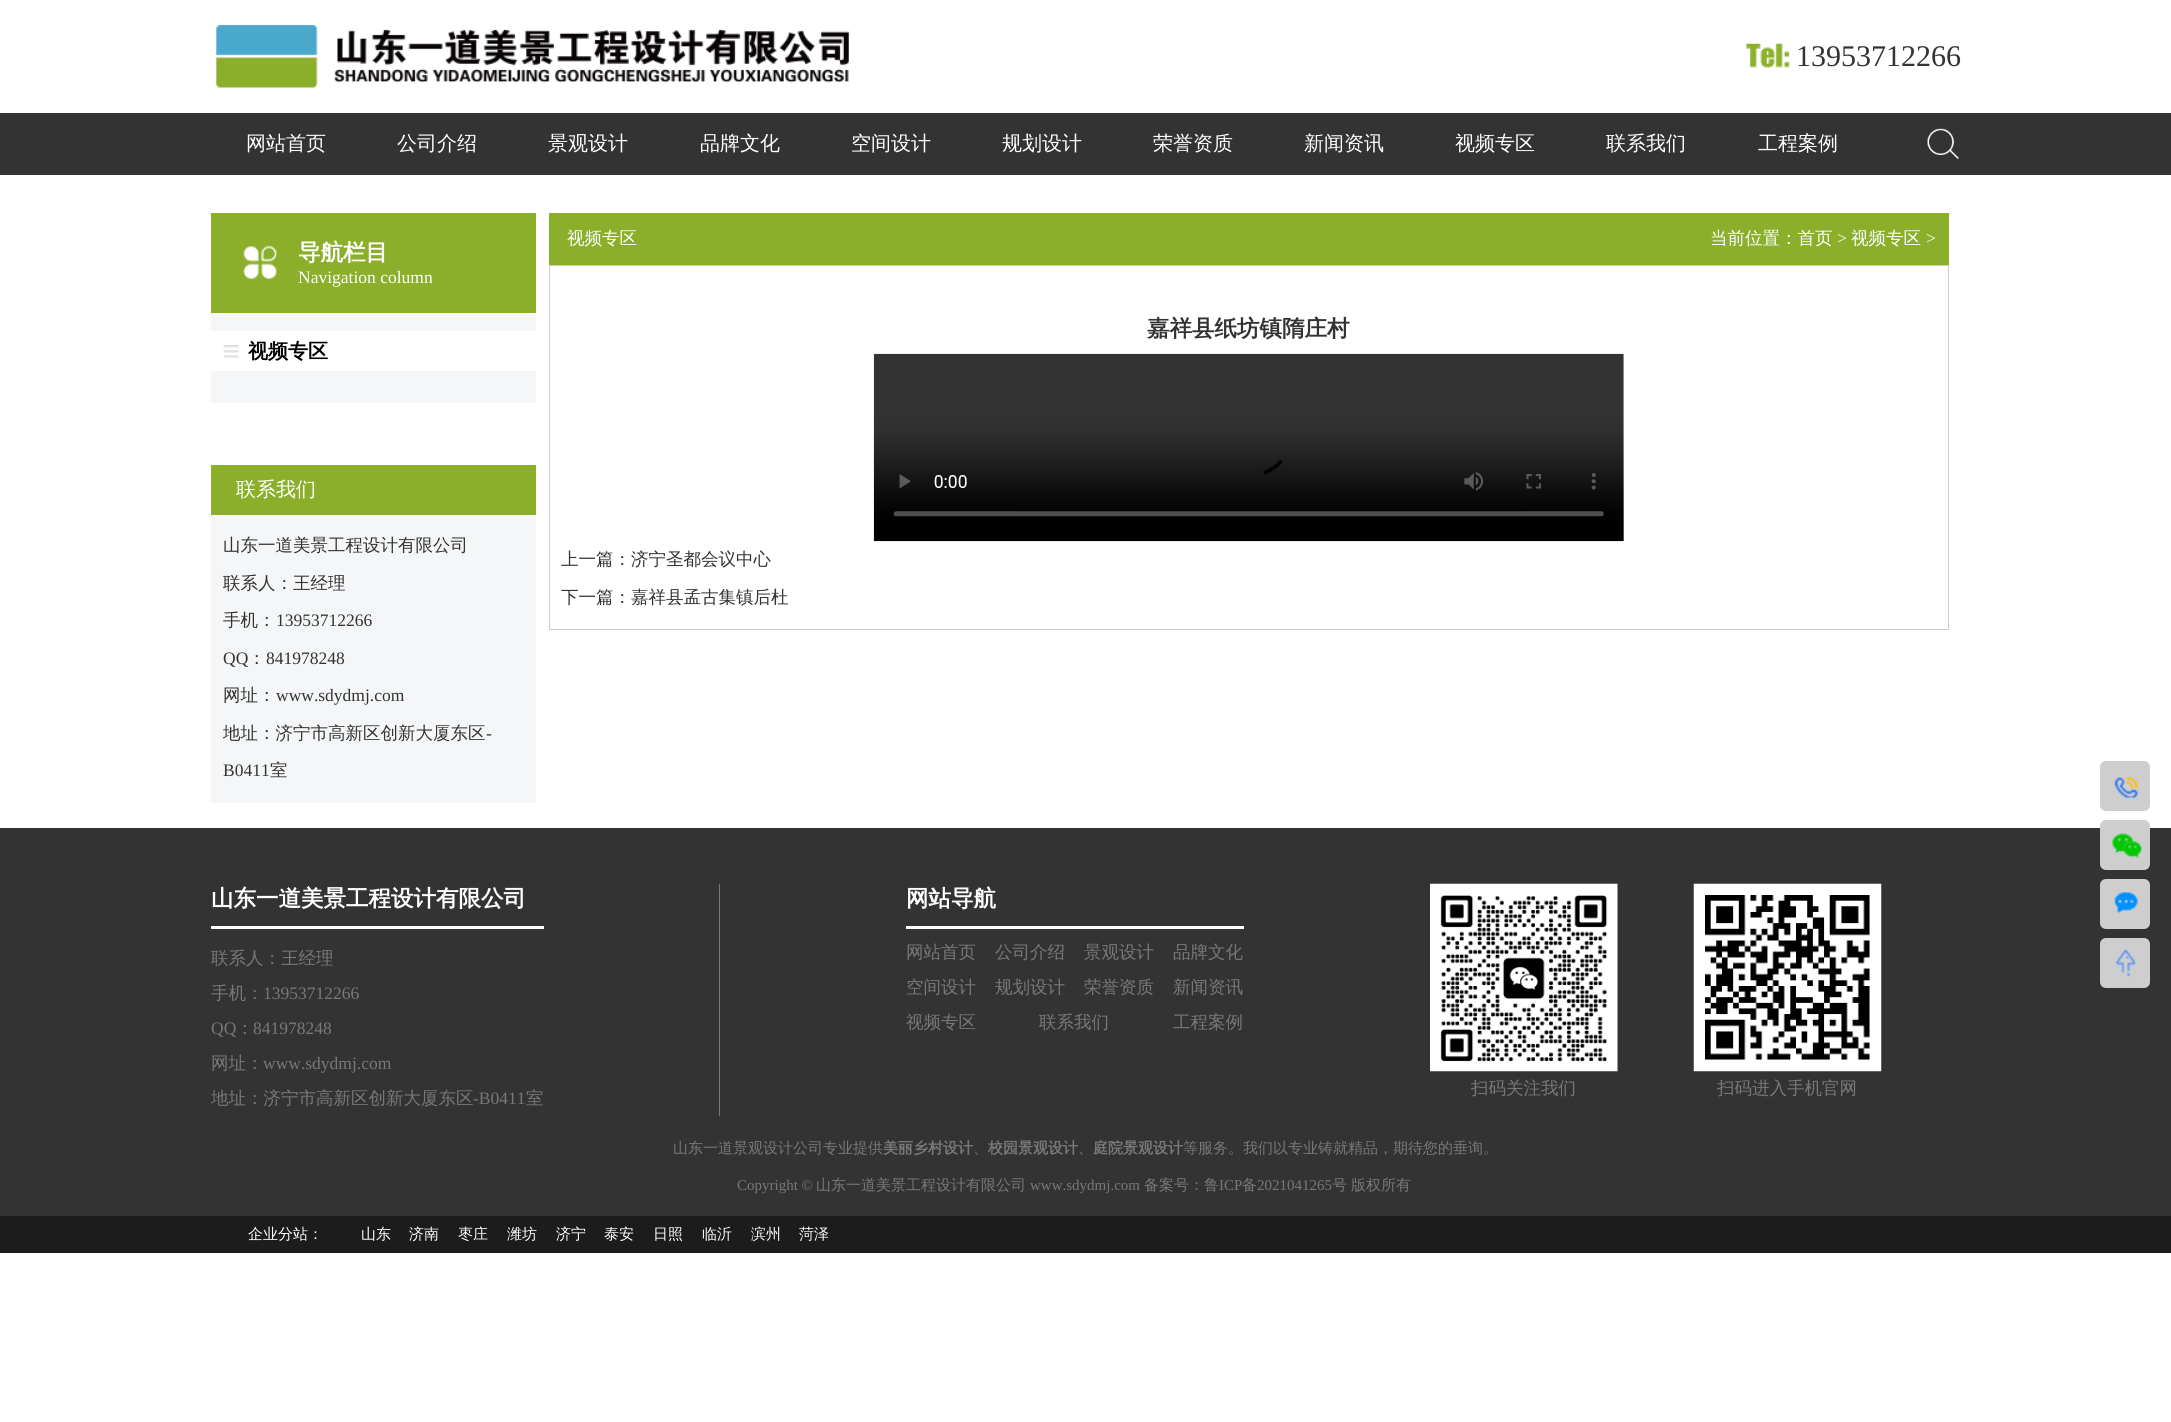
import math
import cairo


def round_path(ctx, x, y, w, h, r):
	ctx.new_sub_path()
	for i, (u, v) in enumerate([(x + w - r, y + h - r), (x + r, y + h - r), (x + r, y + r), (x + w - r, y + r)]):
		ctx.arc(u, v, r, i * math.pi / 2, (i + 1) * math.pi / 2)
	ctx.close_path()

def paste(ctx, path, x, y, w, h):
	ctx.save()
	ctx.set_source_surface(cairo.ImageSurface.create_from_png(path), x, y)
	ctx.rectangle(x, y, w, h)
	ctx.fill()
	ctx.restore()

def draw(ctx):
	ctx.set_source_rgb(1, 1, 1)
	ctx.paint()
	paste(ctx, 'media/1.png', 216, 24, 633, 64)
	paste(ctx, 'media/2.png', 1746, 43, 44, 25)
	ctx.select_font_face('Liberation Serif')
	ctx.set_font_size(30)
	ctx.set_source_rgb(0.2, 0.2, 0.2)
	ctx.move_to(1796, 66)
	ctx.show_text('13953712266')
	ctx.rectangle(0, 113, 2171, 62)
	ctx.fill()
	ctx.select_font_face('WenQuanYi Zen Hei Medium')
	ctx.set_font_size(20)
	ctx.set_source_rgb(1, 1, 1)
	for x, y, s in [
		(246, 150, '网站首页'),
		(397, 150, '公司介绍'),
		(548, 150, '景观设计'),
		(700, 150, '品牌文化'),
		(851, 150, '空间设计'),
		(1002, 150, '规划设计'),
		(1153, 150, '荣誉资质'),
		(1304, 150, '新闻资讯'),
		(1455, 150, '视频专区'),
		(1606, 150, '联系我们'),
		(1758, 150, '工程案例'),
	]:
		ctx.move_to(x, y)
		ctx.show_text(s)
	paste(ctx, 'media/3.png', 1927, 128, 32, 32)
	ctx.set_source_rgb(0.545, 0.686, 0.165)
	ctx.rectangle(211, 213, 325, 100)
	ctx.fill()
	paste(ctx, 'media/4.png', 243, 246, 34, 33)
	ctx.select_font_face('WenQuanYi Zen Hei', cairo.FONT_SLANT_NORMAL, cairo.FONT_WEIGHT_BOLD)
	ctx.set_font_size(22.5)
	ctx.set_source_rgb(1, 1, 1)
	ctx.move_to(298, 260)
	ctx.show_text('导航栏目')
	ctx.select_font_face('Liberation Serif')
	ctx.set_font_size(17.5)
	ctx.move_to(298, 283)
	ctx.show_text('Navigation column')
	ctx.set_source_rgb(0.957, 0.961, 0.969)
	ctx.rectangle(211, 313, 325, 90)
	ctx.fill()
	ctx.set_source_rgb(1, 1, 1)
	ctx.rectangle(211, 331, 325, 40)
	ctx.fill()
	paste(ctx, 'media/5.png', 223, 345, 16, 13)
	ctx.select_font_face('WenQuanYi Zen Hei', cairo.FONT_SLANT_NORMAL, cairo.FONT_WEIGHT_BOLD)
	ctx.set_font_size(20)
	ctx.set_source_rgb(0, 0, 0)
	ctx.move_to(248, 358)
	ctx.show_text('视频专区')
	ctx.set_source_rgb(0.545, 0.686, 0.165)
	ctx.rectangle(211, 465, 325, 50)
	ctx.fill()
	ctx.select_font_face('WenQuanYi Zen Hei Medium')
	ctx.set_source_rgb(1, 1, 1)
	ctx.move_to(236, 496)
	ctx.show_text('联系我们')
	ctx.set_source_rgb(0.957, 0.961, 0.969)
	ctx.rectangle(211, 515, 325, 288)
	ctx.fill()
	ctx.set_font_size(17.5)
	ctx.set_source_rgb(0.2, 0.2, 0.2)
	for x, y, s in [
		(223, 551, '山东一道美景工程设计有限公司'),
		(223, 589, '联系人：王经理'),
		(223, 626, '手机：'),
	]:
		ctx.move_to(x, y)
		ctx.show_text(s)
	ctx.select_font_face('Liberation Serif')
	ctx.move_to(276, 626)
	ctx.show_text('13953712266')
	ctx.move_to(223, 664)
	ctx.show_text('QQ')
	ctx.select_font_face('WenQuanYi Zen Hei Medium')
	ctx.move_to(248, 664)
	ctx.show_text('：')
	ctx.select_font_face('Liberation Serif')
	ctx.move_to(266, 664)
	ctx.show_text('841978248')
	ctx.select_font_face('WenQuanYi Zen Hei Medium')
	ctx.move_to(223, 701)
	ctx.show_text('网址：')
	ctx.select_font_face('Liberation Serif')
	ctx.move_to(276, 701)
	ctx.show_text('www.sdydmj.com')
	ctx.select_font_face('WenQuanYi Zen Hei Medium')
	ctx.move_to(223, 739)
	ctx.show_text('地址：济宁市高新区创新大厦东区')
	ctx.select_font_face('Liberation Serif')
	ctx.move_to(486, 739)
	ctx.show_text('-')
	ctx.move_to(223, 776)
	ctx.show_text('B0411')
	ctx.select_font_face('WenQuanYi Zen Hei Medium')
	ctx.move_to(270, 776)
	ctx.show_text('室')
	ctx.set_source_rgb(0.545, 0.686, 0.165)
	ctx.rectangle(549, 213, 1400, 52)
	ctx.fill()
	ctx.set_source_rgb(1, 1, 1)
	ctx.move_to(567, 244)
	ctx.show_text('视频专区')
	ctx.move_to(1710, 244)
	ctx.show_text('当前位置：首页')
	ctx.select_font_face('Liberation Serif')
	ctx.move_to(1837, 244)
	ctx.show_text('>')
	ctx.select_font_face('WenQuanYi Zen Hei Medium')
	ctx.move_to(1851, 244)
	ctx.show_text('视频专区')
	ctx.select_font_face('Liberation Serif')
	ctx.move_to(1926, 244)
	ctx.show_text('>')
	ctx.rectangle(549.5, 265.5, 1399, 364)
	ctx.set_source_rgb(0.8, 0.8, 0.8)
	ctx.set_line_width(1)
	ctx.stroke()
	ctx.select_font_face('WenQuanYi Zen Hei', cairo.FONT_SLANT_NORMAL, cairo.FONT_WEIGHT_BOLD)
	ctx.set_font_size(22.5)
	ctx.set_source_rgb(0.2, 0.2, 0.2)
	ctx.move_to(1147, 336)
	ctx.show_text('嘉祥县纸坊镇隋庄村')
	paste(ctx, 'media/6.png', 873, 353, 751, 189)
	ctx.select_font_face('WenQuanYi Zen Hei Medium')
	ctx.set_font_size(17.5)
	ctx.move_to(561, 565)
	ctx.show_text('上一篇：济宁圣都会议中心')
	ctx.move_to(561, 603)
	ctx.show_text('下一篇：嘉祥县孟古集镇后杜')
	ctx.rectangle(0, 828, 2171, 388)
	ctx.fill()
	ctx.set_source_rgb(0.471, 0.471, 0.471)
	ctx.rectangle(719, 884, 1, 232)
	ctx.fill()
	ctx.set_source_rgb(1, 1, 1)
	ctx.rectangle(211, 926, 333, 3)
	ctx.fill()
	ctx.select_font_face('WenQuanYi Zen Hei', cairo.FONT_SLANT_NORMAL, cairo.FONT_WEIGHT_BOLD)
	ctx.set_font_size(22.5)
	ctx.move_to(211, 906)
	ctx.show_text('山东一道美景工程设计有限公司')
	ctx.select_font_face('WenQuanYi Zen Hei Medium')
	ctx.set_font_size(17.5)
	ctx.set_source_rgb(0.471, 0.471, 0.471)
	ctx.move_to(211, 964)
	ctx.show_text('联系人：王经理')
	ctx.move_to(211, 999)
	ctx.show_text('手机：')
	ctx.select_font_face('Liberation Serif')
	ctx.move_to(263, 999)
	ctx.show_text('13953712266')
	ctx.move_to(211, 1034)
	ctx.show_text('QQ')
	ctx.select_font_face('WenQuanYi Zen Hei Medium')
	ctx.move_to(236, 1034)
	ctx.show_text('：')
	ctx.select_font_face('Liberation Serif')
	ctx.move_to(253, 1034)
	ctx.show_text('841978248')
	ctx.select_font_face('WenQuanYi Zen Hei Medium')
	ctx.move_to(211, 1069)
	ctx.show_text('网址：')
	ctx.select_font_face('Liberation Serif')
	ctx.move_to(263, 1069)
	ctx.show_text('www.sdydmj.com')
	ctx.select_font_face('WenQuanYi Zen Hei Medium')
	ctx.move_to(211, 1104)
	ctx.show_text('地址：济宁市高新区创新大厦东区')
	ctx.select_font_face('Liberation Serif')
	ctx.move_to(473, 1104)
	ctx.show_text('-B0411')
	ctx.select_font_face('WenQuanYi Zen Hei Medium')
	ctx.move_to(526, 1104)
	ctx.show_text('室')
	ctx.set_source_rgb(1, 1, 1)
	ctx.rectangle(906, 926, 338, 3)
	ctx.fill()
	ctx.select_font_face('WenQuanYi Zen Hei', cairo.FONT_SLANT_NORMAL, cairo.FONT_WEIGHT_BOLD)
	ctx.set_font_size(22.5)
	ctx.move_to(906, 906)
	ctx.show_text('网站导航')
	ctx.select_font_face('WenQuanYi Zen Hei Medium')
	ctx.set_font_size(17.5)
	ctx.set_source_rgb(0.471, 0.471, 0.471)
	for x, y, s in [
		(906, 958, '网站首页'),
		(995, 958, '公司介绍'),
		(1084, 958, '景观设计'),
		(1173, 958, '品牌文化'),
		(906, 993, '空间设计'),
		(995, 993, '规划设计'),
		(1084, 993, '荣誉资质'),
		(1173, 993, '新闻资讯'),
		(906, 1028, '视频专区'),
		(1039, 1028, '联系我们'),
		(1173, 1028, '工程案例'),
	]:
		ctx.move_to(x, y)
		ctx.show_text(s)
	paste(ctx, 'media/7.png', 1430, 883, 188, 189)
	ctx.move_to(1471, 1094)
	ctx.show_text('扫码关注我们')
	paste(ctx, 'media/8.png', 1693, 883, 189, 189)
	ctx.move_to(1717, 1094)
	ctx.show_text('扫码进入手机官网')
	ctx.set_font_size(15)
	ctx.move_to(673, 1153)
	ctx.show_text('山东一道景观设计公司专业提供')
	ctx.select_font_face('WenQuanYi Zen Hei', cairo.FONT_SLANT_NORMAL, cairo.FONT_WEIGHT_BOLD)
	ctx.move_to(883, 1153)
	ctx.show_text('美丽乡村设计')
	ctx.select_font_face('WenQuanYi Zen Hei Medium')
	ctx.move_to(973, 1153)
	ctx.show_text('、')
	ctx.select_font_face('WenQuanYi Zen Hei', cairo.FONT_SLANT_NORMAL, cairo.FONT_WEIGHT_BOLD)
	ctx.move_to(988, 1153)
	ctx.show_text('校园景观设计')
	ctx.select_font_face('WenQuanYi Zen Hei Medium')
	ctx.move_to(1078, 1153)
	ctx.show_text('、')
	ctx.select_font_face('WenQuanYi Zen Hei', cairo.FONT_SLANT_NORMAL, cairo.FONT_WEIGHT_BOLD)
	ctx.move_to(1093, 1153)
	ctx.show_text('庭院景观设计')
	ctx.select_font_face('WenQuanYi Zen Hei Medium')
	ctx.move_to(1183, 1153)
	ctx.show_text('等服务。我们以专业铸就精品，期待您的垂询。')
	ctx.select_font_face('Liberation Serif')
	ctx.move_to(737, 1190)
	ctx.show_text('Copyright ©')
	ctx.select_font_face('WenQuanYi Zen Hei Medium')
	ctx.move_to(816, 1190)
	ctx.show_text('山东一道美景工程设计有限公司')
	ctx.select_font_face('Liberation Serif')
	ctx.move_to(1030, 1190)
	ctx.show_text('www.sdydmj.com')
	ctx.select_font_face('WenQuanYi Zen Hei Medium')
	ctx.move_to(1144, 1190)
	ctx.show_text('备案号：鲁')
	ctx.select_font_face('Liberation Serif')
	ctx.move_to(1219, 1190)
	ctx.show_text('ICP')
	ctx.select_font_face('WenQuanYi Zen Hei Medium')
	ctx.move_to(1242, 1190)
	ctx.show_text('备')
	ctx.select_font_face('Liberation Serif')
	ctx.move_to(1257, 1190)
	ctx.show_text('2021041265')
	ctx.select_font_face('WenQuanYi Zen Hei Medium')
	ctx.move_to(1332, 1190)
	ctx.show_text('号')
	ctx.move_to(1351, 1190)
	ctx.show_text('版权所有')
	ctx.set_source_rgb(0.808, 0.808, 0.808)
	round_path(ctx, 2100, 761, 50, 50, 6)
	ctx.fill()
	paste(ctx, 'media/9.png', 2114, 777, 25, 22)
	round_path(ctx, 2100, 820, 50, 50, 6)
	ctx.fill()
	paste(ctx, 'media/10.png', 2112, 833, 31, 26)
	round_path(ctx, 2100, 879, 50, 50, 6)
	ctx.fill()
	paste(ctx, 'media/11.png', 2114, 892, 25, 22)
	round_path(ctx, 2100, 938, 50, 50, 6)
	ctx.fill()
	paste(ctx, 'media/12.png', 2115, 949, 21, 28)
	ctx.set_source_rgb(0.11, 0.11, 0.11)
	ctx.rectangle(0, 1216, 2171, 37)
	ctx.fill()
	ctx.set_source_rgb(1, 1, 1)
	for x, y, s in [
		(248, 1239, '企业分站：'),
		(361, 1239, '山东'),
		(409, 1239, '济南'),
		(458, 1239, '枣庄'),
		(507, 1239, '潍坊'),
		(556, 1239, '济宁'),
		(604, 1239, '泰安'),
		(653, 1239, '日照'),
		(702, 1239, '临沂'),
		(751, 1239, '滨州'),
		(799, 1239, '菏泽'),
	]:
		ctx.move_to(x, y)
		ctx.show_text(s)


surface = cairo.ImageSurface(cairo.FORMAT_RGB24, 2171, 1422)
ctx = cairo.Context(surface)
options = cairo.FontOptions()
options.set_hint_metrics(cairo.HINT_METRICS_OFF)
options.set_hint_style(cairo.HINT_STYLE_NONE)
ctx.set_font_options(options)
ctx.set_miter_limit(4)
draw(ctx)
surface.write_to_png('image.png')
